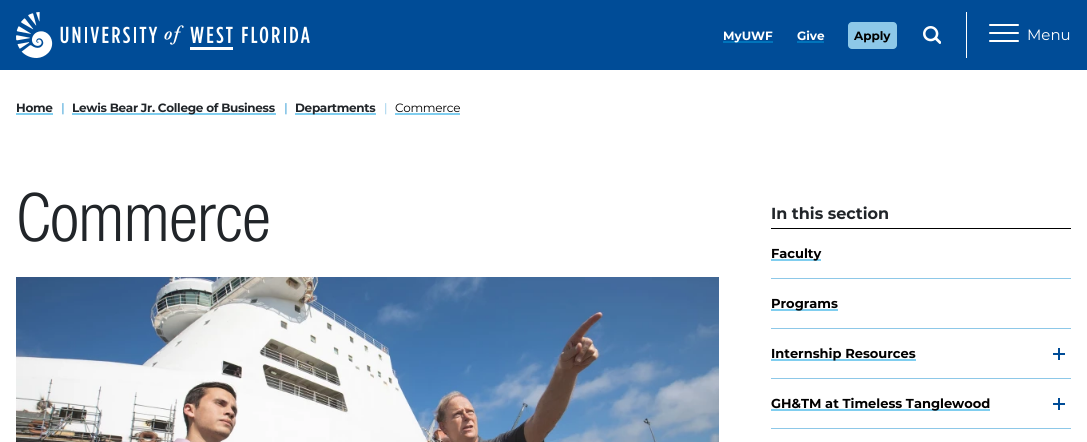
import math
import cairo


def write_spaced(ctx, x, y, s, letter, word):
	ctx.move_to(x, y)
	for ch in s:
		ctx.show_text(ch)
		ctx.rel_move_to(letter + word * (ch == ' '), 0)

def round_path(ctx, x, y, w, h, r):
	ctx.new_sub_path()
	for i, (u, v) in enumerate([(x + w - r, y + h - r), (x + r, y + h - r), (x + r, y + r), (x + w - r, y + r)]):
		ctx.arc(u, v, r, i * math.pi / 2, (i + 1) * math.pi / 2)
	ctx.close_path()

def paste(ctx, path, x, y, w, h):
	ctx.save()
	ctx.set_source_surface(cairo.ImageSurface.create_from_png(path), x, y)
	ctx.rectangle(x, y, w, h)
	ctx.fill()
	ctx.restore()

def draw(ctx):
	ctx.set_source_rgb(1, 1, 1)
	ctx.paint()
	ctx.set_source_rgb(0, 0.298, 0.592)
	ctx.rectangle(0, 0, 1087, 70)
	ctx.fill()
	paste(ctx, 'media/1.png', 16, 12, 294, 46)
	ctx.set_source_rgb(0, 0.455, 0.733)
	ctx.rectangle(723, 41, 50, 2)
	ctx.fill()
	ctx.select_font_face('Montserrat', cairo.FONT_SLANT_NORMAL, cairo.FONT_WEIGHT_BOLD)
	ctx.set_font_size(12)
	ctx.set_source_rgb(1, 1, 1)
	ctx.move_to(723, 40)
	ctx.show_text('MyUWF')
	ctx.move_to(797, 40)
	ctx.show_text('Give')
	ctx.set_source_rgb(0, 0.455, 0.733)
	ctx.rectangle(797, 41, 27, 2)
	ctx.fill()
	ctx.set_source_rgb(0.553, 0.784, 0.91)
	round_path(ctx, 848, 22, 49, 27, 4)
	ctx.fill()
	ctx.set_source_rgb(0, 0, 0)
	ctx.move_to(854, 40)
	ctx.show_text('Apply')
	paste(ctx, 'media/2.png', 923, 26, 18, 18)
	ctx.set_source_rgb(1, 1, 1)
	ctx.rectangle(966, 12, 1, 46)
	ctx.fill()
	round_path(ctx, 989, 32, 30, 2, 1)
	ctx.fill()
	round_path(ctx, 989, 24, 30, 2, 1)
	ctx.fill()
	round_path(ctx, 989, 40, 30, 2, 1)
	ctx.fill()
	ctx.select_font_face('Montserrat')
	ctx.set_font_size(15)
	ctx.move_to(1027, 40)
	ctx.show_text('Menu')
	ctx.select_font_face('Montserrat', cairo.FONT_SLANT_NORMAL, cairo.FONT_WEIGHT_BOLD)
	ctx.set_font_size(12)
	ctx.set_source_rgb(0.129, 0.145, 0.161)
	write_spaced(ctx, 16, 112, 'Home', -0.3, 0)
	ctx.set_source_rgb(0.502, 0.808, 0.937)
	ctx.rectangle(16, 113, 37, 2)
	ctx.fill()
	ctx.set_source_rgb(0.553, 0.784, 0.91)
	write_spaced(ctx, 61, 112, '|', -0.3, 0)
	ctx.set_source_rgb(0.502, 0.808, 0.937)
	ctx.rectangle(72, 113, 204, 2)
	ctx.fill()
	ctx.set_source_rgb(0.129, 0.145, 0.161)
	write_spaced(ctx, 72, 112, 'Lewis Bear Jr. College of Business', -0.3, 0)
	ctx.set_source_rgb(0.553, 0.784, 0.91)
	write_spaced(ctx, 284, 112, '|', -0.3, 0)
	ctx.set_source_rgb(0.502, 0.808, 0.937)
	ctx.rectangle(295, 113, 81, 2)
	ctx.fill()
	ctx.set_source_rgb(0.129, 0.145, 0.161)
	write_spaced(ctx, 295, 112, 'Departments', -0.3, 0)
	ctx.select_font_face('Montserrat')
	ctx.set_source_rgb(0.553, 0.784, 0.91)
	write_spaced(ctx, 384, 112, '|', -0.3, 0)
	ctx.set_source_rgb(0, 0, 0)
	write_spaced(ctx, 395, 112, 'Commerce', -0.3, 0)
	ctx.set_source_rgb(0.502, 0.808, 0.937)
	ctx.rectangle(395, 113, 65, 2)
	ctx.fill()
	ctx.select_font_face('Helvetica Neue Light')
	ctx.set_font_size(67)
	ctx.set_source_rgb(0.129, 0.145, 0.161)
	write_spaced(ctx, 16, 241, 'Commerce', -0.5, 0)
	paste(ctx, 'media/3.png', 16, 277, 703, 165)
	ctx.select_font_face('Montserrat', cairo.FONT_SLANT_NORMAL, cairo.FONT_WEIGHT_BOLD)
	ctx.set_font_size(16)
	ctx.move_to(771, 219)
	ctx.show_text('In this section')
	ctx.set_source_rgb(0, 0, 0)
	ctx.rectangle(771, 228, 300, 1)
	ctx.fill()
	ctx.set_source_rgb(0.553, 0.784, 0.91)
	ctx.rectangle(771, 278, 300, 1)
	ctx.fill()
	ctx.set_source_rgb(0.502, 0.808, 0.937)
	ctx.rectangle(771, 259, 50, 2)
	ctx.fill()
	ctx.set_font_size(13)
	ctx.set_source_rgb(0, 0, 0)
	ctx.move_to(771, 258)
	ctx.show_text('Faculty')
	ctx.set_source_rgb(0.553, 0.784, 0.91)
	ctx.rectangle(771, 328, 300, 1)
	ctx.fill()
	ctx.set_source_rgb(0.502, 0.808, 0.937)
	ctx.rectangle(771, 309, 67, 2)
	ctx.fill()
	ctx.set_source_rgb(0, 0, 0)
	ctx.move_to(771, 308)
	ctx.show_text('Programs')
	ctx.set_source_rgb(0.553, 0.784, 0.91)
	ctx.rectangle(771, 378, 300, 1)
	ctx.fill()
	ctx.set_source_rgb(0.502, 0.808, 0.937)
	ctx.rectangle(771, 359, 145, 2)
	ctx.fill()
	ctx.set_source_rgb(0, 0, 0)
	ctx.move_to(771, 358)
	ctx.show_text('Internship Resources')
	ctx.set_source_rgb(0, 0.298, 0.592)
	ctx.rectangle(1058, 348, 2, 12)
	ctx.rectangle(1053, 353, 12, 2)
	ctx.fill()
	ctx.set_source_rgb(0.553, 0.784, 0.91)
	ctx.rectangle(771, 428, 300, 1)
	ctx.fill()
	ctx.set_source_rgb(0.502, 0.808, 0.937)
	ctx.rectangle(771, 409, 219, 2)
	ctx.fill()
	ctx.set_source_rgb(0, 0, 0)
	ctx.move_to(771, 408)
	ctx.show_text('GH&TM at Timeless Tanglewood')
	ctx.set_source_rgb(0, 0.298, 0.592)
	ctx.rectangle(1058, 398, 2, 12)
	ctx.fill()
	ctx.rectangle(1053, 403, 12, 2)
	ctx.fill()


surface = cairo.ImageSurface(cairo.FORMAT_RGB24, 1087, 442)
ctx = cairo.Context(surface)
options = cairo.FontOptions()
options.set_hint_metrics(cairo.HINT_METRICS_OFF)
options.set_hint_style(cairo.HINT_STYLE_NONE)
ctx.set_font_options(options)
ctx.set_miter_limit(4)
draw(ctx)
surface.write_to_png('image.png')
